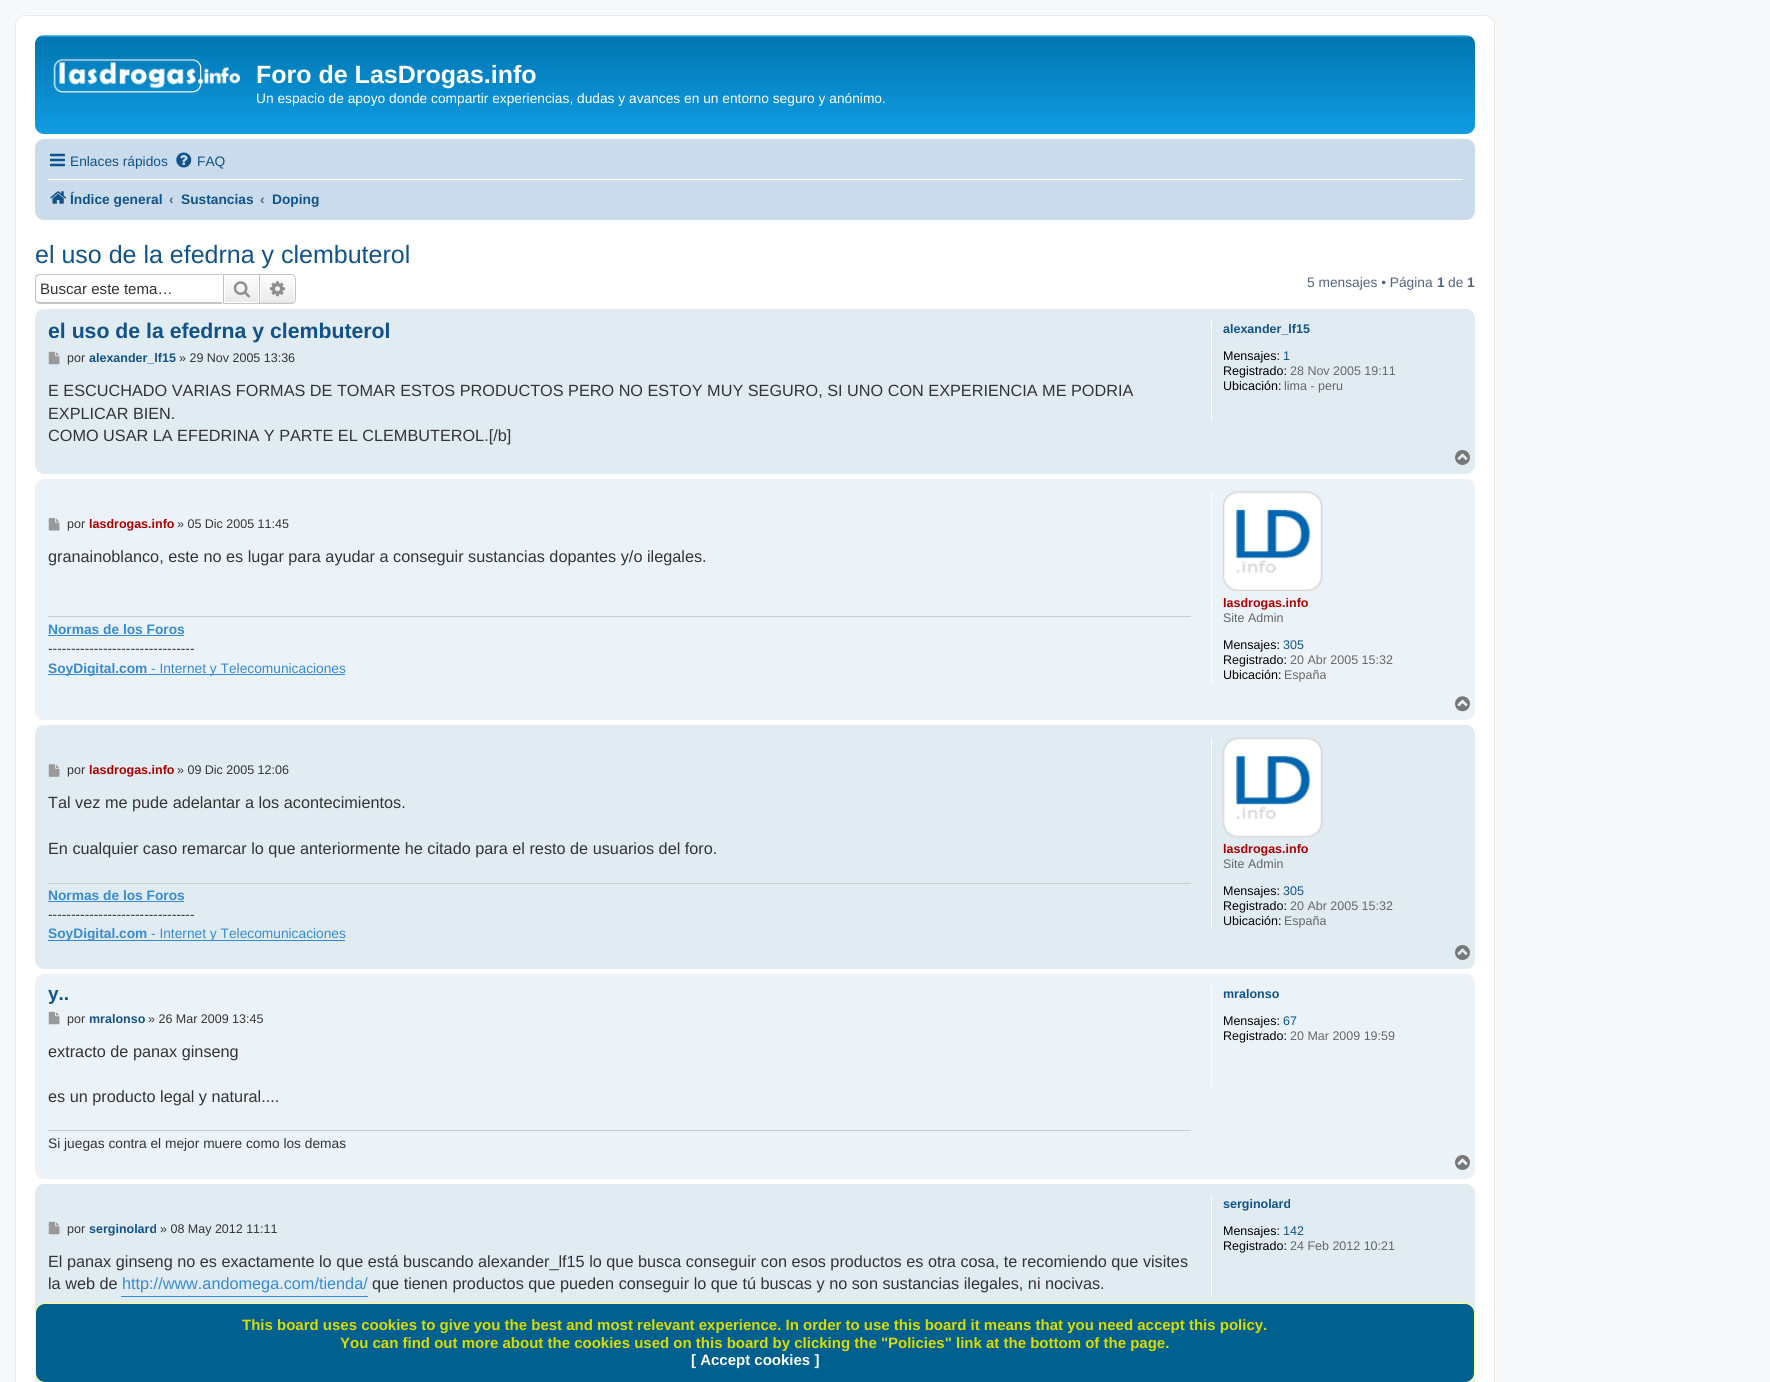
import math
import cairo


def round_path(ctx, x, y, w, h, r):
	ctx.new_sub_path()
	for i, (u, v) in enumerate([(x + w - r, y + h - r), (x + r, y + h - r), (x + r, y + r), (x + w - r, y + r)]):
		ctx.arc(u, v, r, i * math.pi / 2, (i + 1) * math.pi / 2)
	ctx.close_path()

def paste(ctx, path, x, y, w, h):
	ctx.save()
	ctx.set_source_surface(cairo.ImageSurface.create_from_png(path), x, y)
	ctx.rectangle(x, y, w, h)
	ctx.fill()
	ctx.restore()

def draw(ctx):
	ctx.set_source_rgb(0.961, 0.969, 0.98)
	ctx.paint()
	ctx.set_source_rgb(1, 1, 1)
	round_path(ctx, 15.5, 15.5, 1479, 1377, 9.5)
	ctx.fill_preserve()
	ctx.set_source_rgb(0.902, 0.914, 0.929)
	ctx.set_line_width(1)
	ctx.stroke()
	gradient = cairo.LinearGradient(755, 35, 755, 150)
	gradient.add_color_stop_rgba(0, 0.416, 0.808, 1, 1)
	gradient.add_color_stop_rgba(0.02, 0, 0.463, 0.694, 1)
	gradient.add_color_stop_rgba(1, 0.071, 0.639, 0.922, 1)
	ctx.set_source(gradient)
	round_path(ctx, 35, 35, 1440, 99, 9)
	ctx.fill()
	paste(ctx, 'media/1.png', 53, 59, 187, 34)
	ctx.select_font_face('Liberation Sans', cairo.FONT_SLANT_NORMAL, cairo.FONT_WEIGHT_BOLD)
	ctx.set_font_size(25)
	ctx.set_source_rgb(1, 1, 1)
	ctx.move_to(256, 83)
	ctx.show_text('Foro de LasDrogas.info')
	ctx.select_font_face('Liberation Sans')
	ctx.set_font_size(13.75)
	ctx.move_to(256, 103)
	ctx.show_text('Un espacio de apoyo donde compartir experiencias, dudas y avances en un entorno seguro y anónimo.')
	ctx.set_source_rgb(0.792, 0.863, 0.922)
	round_path(ctx, 35, 139, 1440, 81, 9)
	ctx.fill()
	paste(ctx, 'media/2.png', 50, 153, 15, 14)
	ctx.set_source_rgb(0.063, 0.322, 0.537)
	ctx.move_to(70, 166)
	ctx.show_text('Enlaces rápidos')
	paste(ctx, 'media/3.png', 176, 152, 16, 16)
	ctx.move_to(197, 166)
	ctx.show_text('FAQ')
	ctx.set_source_rgb(1, 1, 1)
	ctx.rectangle(48, 179, 1415, 1)
	ctx.fill()
	paste(ctx, 'media/4.png', 50, 191, 16, 13)
	ctx.select_font_face('Liberation Sans', cairo.FONT_SLANT_NORMAL, cairo.FONT_WEIGHT_BOLD)
	ctx.set_source_rgb(0.063, 0.322, 0.537)
	ctx.move_to(70, 204)
	ctx.show_text('Índice general')
	ctx.set_source_rgb(0.325, 0.392, 0.51)
	ctx.move_to(169, 204)
	ctx.show_text('‹')
	ctx.set_source_rgb(0.063, 0.322, 0.537)
	ctx.move_to(181, 204)
	ctx.show_text('Sustancias')
	ctx.set_source_rgb(0.325, 0.392, 0.51)
	ctx.move_to(260, 204)
	ctx.show_text('‹')
	ctx.set_source_rgb(0.063, 0.322, 0.537)
	ctx.move_to(272, 204)
	ctx.show_text('Doping')
	ctx.select_font_face('Liberation Sans')
	ctx.set_font_size(25)
	ctx.move_to(35, 263)
	ctx.show_text('el uso de la efedrna y clembuterol')
	ctx.set_source_rgb(0.78, 0.765, 0.749)
	ctx.set_fill_rule(cairo.FILL_RULE_EVEN_ODD)
	ctx.new_path()
	ctx.move_to(40, 274)
	ctx.line_to(222, 274)
	ctx.line_to(222, 304)
	ctx.line_to(40, 304)
	ctx.curve_to(37, 304, 35, 302, 35, 299)
	ctx.line_to(35, 279)
	ctx.curve_to(35, 276, 37, 274, 40, 274)
	ctx.close_path()
	ctx.move_to(40, 275)
	ctx.line_to(222, 275)
	ctx.line_to(222, 302)
	ctx.line_to(40, 302)
	ctx.curve_to(38, 302, 36, 301, 36, 299)
	ctx.line_to(36, 279)
	ctx.curve_to(36, 277, 38, 275, 40, 275)
	ctx.close_path()
	ctx.fill()
	ctx.set_font_size(15.1)
	ctx.set_source_rgb(0.2, 0.2, 0.2)
	ctx.move_to(40, 294)
	ctx.show_text('Buscar este tema…')
	gradient = cairo.LinearGradient(241, 275, 241, 303)
	gradient.add_color_stop_rgba(0, 1, 1, 1, 1)
	gradient.add_color_stop_rgba(1, 0.914, 0.914, 0.914, 1)
	ctx.set_source(gradient)
	ctx.rectangle(225, 278, 33, 24)
	ctx.fill()
	ctx.rectangle(223.5, 274.5, 36, 29)
	ctx.set_source_rgb(0.78, 0.765, 0.749)
	ctx.stroke()
	paste(ctx, 'media/5.png', 233, 281, 17, 17)
	gradient = cairo.LinearGradient(278, 275, 278, 303)
	gradient.add_color_stop_rgba(0, 1, 1, 1, 1)
	gradient.add_color_stop_rgba(1, 0.914, 0.914, 0.914, 1)
	ctx.set_source(gradient)
	ctx.new_path()
	ctx.move_to(260.5, 275.5)
	ctx.line_to(291, 275.5)
	ctx.curve_to(293, 275.5, 294.5, 277, 294.5, 279)
	ctx.line_to(294.5, 299)
	ctx.curve_to(294.5, 301, 293, 302.5, 291, 302.5)
	ctx.line_to(260.5, 302.5)
	ctx.close_path()
	ctx.fill_preserve()
	ctx.set_source_rgb(1, 1, 1)
	ctx.stroke()
	ctx.set_source_rgb(0.78, 0.765, 0.749)
	ctx.new_path()
	ctx.move_to(260, 274)
	ctx.line_to(291, 274)
	ctx.curve_to(294, 274, 296, 276, 296, 279)
	ctx.line_to(296, 299)
	ctx.curve_to(296, 301.5, 294, 304, 291, 304)
	ctx.line_to(260, 304)
	ctx.close_path()
	ctx.move_to(260, 275)
	ctx.line_to(291, 275)
	ctx.curve_to(293.5, 275, 295, 276.5, 295, 279)
	ctx.line_to(295, 299)
	ctx.curve_to(295, 301, 293.5, 302.5, 291, 302.5)
	ctx.line_to(260, 302.5)
	ctx.close_path()
	ctx.fill()
	paste(ctx, 'media/6.png', 270, 281, 15, 16)
	ctx.set_font_size(13.75)
	ctx.set_source_rgb(0.325, 0.392, 0.51)
	ctx.move_to(1307, 287)
	ctx.show_text('5 mensajes • Página')
	ctx.select_font_face('Liberation Sans', cairo.FONT_SLANT_NORMAL, cairo.FONT_WEIGHT_BOLD)
	ctx.move_to(1437, 287)
	ctx.show_text('1')
	ctx.select_font_face('Liberation Sans')
	ctx.move_to(1448, 287)
	ctx.show_text('de')
	ctx.select_font_face('Liberation Sans', cairo.FONT_SLANT_NORMAL, cairo.FONT_WEIGHT_BOLD)
	ctx.move_to(1467, 287)
	ctx.show_text('1')
	ctx.set_source_rgb(0.882, 0.922, 0.949)
	round_path(ctx, 35, 309, 1440, 165, 9)
	ctx.fill()
	ctx.set_font_size(21.25)
	ctx.set_source_rgb(0.063, 0.322, 0.537)
	ctx.move_to(48, 338)
	ctx.show_text('el uso de la efedrna y clembuterol')
	paste(ctx, 'media/7.png', 48, 351, 12, 14)
	ctx.select_font_face('Liberation Sans')
	ctx.set_font_size(12.5)
	ctx.set_source_rgb(0.2, 0.2, 0.2)
	ctx.move_to(67, 362)
	ctx.show_text('por')
	ctx.select_font_face('Liberation Sans', cairo.FONT_SLANT_NORMAL, cairo.FONT_WEIGHT_BOLD)
	ctx.set_source_rgb(0.063, 0.322, 0.537)
	ctx.move_to(89, 362)
	ctx.show_text('alexander_lf15')
	ctx.select_font_face('Liberation Sans')
	ctx.set_source_rgb(0.2, 0.2, 0.2)
	ctx.move_to(179, 362)
	ctx.show_text('» 29 Nov 2005 13:36')
	ctx.set_font_size(16.25)
	for x, y, s in [
		(48, 396, 'E ESCUCHADO VARIAS FORMAS DE TOMAR ESTOS PRODUCTOS PERO NO ESTOY MUY SEGURO, SI UNO CON EXPERIENCIA ME PODRIA'),
		(48, 419, 'EXPLICAR BIEN.'),
		(48, 441, 'COMO USAR LA EFEDRINA Y PARTE EL CLEMBUTEROL.[/b]'),
	]:
		ctx.move_to(x, y)
		ctx.show_text(s)
	ctx.set_source_rgb(1, 1, 1)
	ctx.rectangle(1211, 321, 1, 100)
	ctx.fill()
	ctx.select_font_face('Liberation Sans', cairo.FONT_SLANT_NORMAL, cairo.FONT_WEIGHT_BOLD)
	ctx.set_font_size(12.5)
	ctx.set_source_rgb(0.063, 0.322, 0.537)
	ctx.move_to(1223, 333)
	ctx.show_text('alexander_lf15')
	ctx.select_font_face('Liberation Sans')
	ctx.set_source_rgb(0, 0, 0)
	ctx.move_to(1223, 360)
	ctx.show_text('Mensajes:')
	ctx.set_source_rgb(0.063, 0.322, 0.537)
	ctx.move_to(1283, 360)
	ctx.show_text('1')
	ctx.set_source_rgb(0, 0, 0)
	ctx.move_to(1223, 375)
	ctx.show_text('Registrado:')
	ctx.set_source_rgb(0.4, 0.4, 0.4)
	ctx.move_to(1290, 375)
	ctx.show_text('28 Nov 2005 19:11')
	ctx.set_source_rgb(0, 0, 0)
	ctx.move_to(1223, 390)
	ctx.show_text('Ubicación:')
	ctx.set_source_rgb(0.4, 0.4, 0.4)
	ctx.move_to(1284, 390)
	ctx.show_text('lima - peru')
	paste(ctx, 'media/8.png', 1455, 450, 15, 15)
	ctx.set_source_rgb(0.925, 0.953, 0.969)
	round_path(ctx, 35, 479, 1440, 241, 9)
	ctx.fill()
	paste(ctx, 'media/9.png', 48, 518, 12, 13)
	ctx.set_source_rgb(0.2, 0.2, 0.2)
	ctx.move_to(67, 528)
	ctx.show_text('por')
	ctx.select_font_face('Liberation Sans', cairo.FONT_SLANT_NORMAL, cairo.FONT_WEIGHT_BOLD)
	ctx.set_source_rgb(0.667, 0, 0)
	ctx.move_to(89, 528)
	ctx.show_text('lasdrogas.info')
	ctx.select_font_face('Liberation Sans')
	ctx.set_source_rgb(0.2, 0.2, 0.2)
	ctx.move_to(177, 528)
	ctx.show_text('» 05 Dic 2005 11:45')
	ctx.set_font_size(16.25)
	ctx.move_to(48, 562)
	ctx.show_text('granainoblanco, este no es lugar para ayudar a conseguir sustancias dopantes y/o ilegales.')
	ctx.set_source_rgb(0.8, 0.8, 0.8)
	ctx.rectangle(48, 616, 1143, 1)
	ctx.fill()
	ctx.select_font_face('Liberation Sans', cairo.FONT_SLANT_NORMAL, cairo.FONT_WEIGHT_BOLD)
	ctx.set_font_size(13.75)
	ctx.set_source_rgb(0.212, 0.541, 0.824)
	ctx.move_to(48, 634)
	ctx.show_text('Normas de los Foros')
	ctx.rectangle(48, 635, 136, 1)
	ctx.fill()
	ctx.select_font_face('Liberation Sans')
	ctx.set_source_rgb(0.2, 0.2, 0.2)
	ctx.move_to(48, 653)
	ctx.show_text('--------------------------------')
	ctx.set_source_rgb(0.212, 0.541, 0.824)
	ctx.rectangle(48, 674, 297, 1)
	ctx.fill()
	ctx.select_font_face('Liberation Sans', cairo.FONT_SLANT_NORMAL, cairo.FONT_WEIGHT_BOLD)
	ctx.move_to(48, 673)
	ctx.show_text('SoyDigital.com')
	ctx.select_font_face('Liberation Sans')
	ctx.move_to(151, 673)
	ctx.show_text('- Internet y Telecomunicaciones')
	ctx.set_source_rgb(1, 1, 1)
	ctx.rectangle(1211, 491, 1, 192)
	ctx.fill()
	paste(ctx, 'media/10.png', 1222, 491, 101, 100)
	ctx.select_font_face('Liberation Sans', cairo.FONT_SLANT_NORMAL, cairo.FONT_WEIGHT_BOLD)
	ctx.set_font_size(12.5)
	ctx.set_source_rgb(0.667, 0, 0)
	ctx.move_to(1223, 607)
	ctx.show_text('lasdrogas.info')
	ctx.select_font_face('Liberation Sans')
	ctx.set_source_rgb(0.4, 0.4, 0.4)
	ctx.move_to(1223, 622)
	ctx.show_text('Site Admin')
	ctx.set_source_rgb(0, 0, 0)
	ctx.move_to(1223, 649)
	ctx.show_text('Mensajes:')
	ctx.set_source_rgb(0.063, 0.322, 0.537)
	ctx.move_to(1283, 649)
	ctx.show_text('305')
	ctx.set_source_rgb(0, 0, 0)
	ctx.move_to(1223, 664)
	ctx.show_text('Registrado:')
	ctx.set_source_rgb(0.4, 0.4, 0.4)
	ctx.move_to(1290, 664)
	ctx.show_text('20 Abr 2005 15:32')
	ctx.set_source_rgb(0, 0, 0)
	ctx.move_to(1223, 679)
	ctx.show_text('Ubicación:')
	ctx.set_source_rgb(0.4, 0.4, 0.4)
	ctx.move_to(1284, 679)
	ctx.show_text('España')
	paste(ctx, 'media/11.png', 1455, 696, 15, 16)
	ctx.set_source_rgb(0.882, 0.922, 0.949)
	round_path(ctx, 35, 725, 1440, 244, 9)
	ctx.fill()
	paste(ctx, 'media/12.png', 48, 764, 12, 13)
	ctx.set_source_rgb(0.2, 0.2, 0.2)
	ctx.move_to(67, 774)
	ctx.show_text('por')
	ctx.select_font_face('Liberation Sans', cairo.FONT_SLANT_NORMAL, cairo.FONT_WEIGHT_BOLD)
	ctx.set_source_rgb(0.667, 0, 0)
	ctx.move_to(89, 774)
	ctx.show_text('lasdrogas.info')
	ctx.select_font_face('Liberation Sans')
	ctx.set_source_rgb(0.2, 0.2, 0.2)
	ctx.move_to(177, 774)
	ctx.show_text('» 09 Dic 2005 12:06')
	ctx.set_font_size(16.25)
	ctx.move_to(48, 808)
	ctx.show_text('Tal vez me pude adelantar a los acontecimientos.')
	ctx.move_to(48, 854)
	ctx.show_text('En cualquier caso remarcar lo que anteriormente he citado para el resto de usuarios del foro.')
	ctx.set_source_rgb(0.8, 0.8, 0.8)
	ctx.rectangle(48, 883, 1143, 1)
	ctx.fill()
	ctx.select_font_face('Liberation Sans', cairo.FONT_SLANT_NORMAL, cairo.FONT_WEIGHT_BOLD)
	ctx.set_font_size(13.75)
	ctx.set_source_rgb(0.212, 0.541, 0.824)
	ctx.move_to(48, 900)
	ctx.show_text('Normas de los Foros')
	ctx.rectangle(48, 901, 136, 1)
	ctx.fill()
	ctx.select_font_face('Liberation Sans')
	ctx.set_source_rgb(0.2, 0.2, 0.2)
	ctx.move_to(48, 919)
	ctx.show_text('--------------------------------')
	ctx.set_source_rgb(0.212, 0.541, 0.824)
	ctx.rectangle(48, 940, 297, 1)
	ctx.fill()
	ctx.select_font_face('Liberation Sans', cairo.FONT_SLANT_NORMAL, cairo.FONT_WEIGHT_BOLD)
	ctx.move_to(48, 938)
	ctx.show_text('SoyDigital.com')
	ctx.select_font_face('Liberation Sans')
	ctx.move_to(151, 938)
	ctx.show_text('- Internet y Telecomunicaciones')
	ctx.set_source_rgb(1, 1, 1)
	ctx.rectangle(1211, 738, 1, 191)
	ctx.fill()
	paste(ctx, 'media/13.png', 1222, 737, 101, 101)
	ctx.select_font_face('Liberation Sans', cairo.FONT_SLANT_NORMAL, cairo.FONT_WEIGHT_BOLD)
	ctx.set_font_size(12.5)
	ctx.set_source_rgb(0.667, 0, 0)
	ctx.move_to(1223, 853)
	ctx.show_text('lasdrogas.info')
	ctx.select_font_face('Liberation Sans')
	ctx.set_source_rgb(0.4, 0.4, 0.4)
	ctx.move_to(1223, 868)
	ctx.show_text('Site Admin')
	ctx.set_source_rgb(0, 0, 0)
	ctx.move_to(1223, 895)
	ctx.show_text('Mensajes:')
	ctx.set_source_rgb(0.063, 0.322, 0.537)
	ctx.move_to(1283, 895)
	ctx.show_text('305')
	ctx.set_source_rgb(0, 0, 0)
	ctx.move_to(1223, 910)
	ctx.show_text('Registrado:')
	ctx.set_source_rgb(0.4, 0.4, 0.4)
	ctx.move_to(1290, 910)
	ctx.show_text('20 Abr 2005 15:32')
	ctx.set_source_rgb(0, 0, 0)
	ctx.move_to(1223, 925)
	ctx.show_text('Ubicación:')
	ctx.set_source_rgb(0.4, 0.4, 0.4)
	ctx.move_to(1284, 925)
	ctx.show_text('España')
	paste(ctx, 'media/8.png', 1455, 945, 15, 15)
	ctx.set_source_rgb(0.925, 0.953, 0.969)
	round_path(ctx, 35, 974, 1440, 205, 9)
	ctx.fill()
	ctx.select_font_face('Liberation Sans', cairo.FONT_SLANT_NORMAL, cairo.FONT_WEIGHT_BOLD)
	ctx.set_font_size(19)
	ctx.set_source_rgb(0.063, 0.322, 0.537)
	ctx.move_to(48, 1000)
	ctx.show_text('y..')
	paste(ctx, 'media/14.png', 48, 1011, 12, 14)
	ctx.select_font_face('Liberation Sans')
	ctx.set_font_size(12.5)
	ctx.set_source_rgb(0.2, 0.2, 0.2)
	ctx.move_to(67, 1023)
	ctx.show_text('por')
	ctx.select_font_face('Liberation Sans', cairo.FONT_SLANT_NORMAL, cairo.FONT_WEIGHT_BOLD)
	ctx.set_source_rgb(0.063, 0.322, 0.537)
	ctx.move_to(89, 1023)
	ctx.show_text('mralonso')
	ctx.select_font_face('Liberation Sans')
	ctx.set_source_rgb(0.2, 0.2, 0.2)
	ctx.move_to(148, 1023)
	ctx.show_text('» 26 Mar 2009 13:45')
	ctx.set_font_size(16.25)
	ctx.move_to(48, 1057)
	ctx.show_text('extracto de panax ginseng')
	ctx.move_to(48, 1102)
	ctx.show_text('es un producto legal y natural....')
	ctx.set_source_rgb(0.8, 0.8, 0.8)
	ctx.rectangle(48, 1130, 1143, 1)
	ctx.fill()
	ctx.set_font_size(13.75)
	ctx.set_source_rgb(0.2, 0.2, 0.2)
	ctx.move_to(48, 1148)
	ctx.show_text('Si juegas contra el mejor muere como los demas')
	ctx.set_source_rgb(1, 1, 1)
	ctx.rectangle(1211, 986, 1, 100)
	ctx.fill()
	ctx.select_font_face('Liberation Sans', cairo.FONT_SLANT_NORMAL, cairo.FONT_WEIGHT_BOLD)
	ctx.set_font_size(12.5)
	ctx.set_source_rgb(0.063, 0.322, 0.537)
	ctx.move_to(1223, 998)
	ctx.show_text('mralonso')
	ctx.select_font_face('Liberation Sans')
	ctx.set_source_rgb(0, 0, 0)
	ctx.move_to(1223, 1025)
	ctx.show_text('Mensajes:')
	ctx.set_source_rgb(0.063, 0.322, 0.537)
	ctx.move_to(1283, 1025)
	ctx.show_text('67')
	ctx.set_source_rgb(0, 0, 0)
	ctx.move_to(1223, 1040)
	ctx.show_text('Registrado:')
	ctx.set_source_rgb(0.4, 0.4, 0.4)
	ctx.move_to(1290, 1040)
	ctx.show_text('20 Mar 2009 19:59')
	paste(ctx, 'media/15.png', 1455, 1155, 15, 15)
	ctx.set_source_rgb(0.882, 0.922, 0.949)
	round_path(ctx, 35, 1184, 1440, 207, 9)
	ctx.fill()
	paste(ctx, 'media/7.png', 48, 1221, 12, 14)
	ctx.set_source_rgb(0.2, 0.2, 0.2)
	ctx.move_to(67, 1233)
	ctx.show_text('por')
	ctx.select_font_face('Liberation Sans', cairo.FONT_SLANT_NORMAL, cairo.FONT_WEIGHT_BOLD)
	ctx.set_source_rgb(0.063, 0.322, 0.537)
	ctx.move_to(89, 1233)
	ctx.show_text('serginolard')
	ctx.select_font_face('Liberation Sans')
	ctx.set_source_rgb(0.2, 0.2, 0.2)
	ctx.move_to(160, 1233)
	ctx.show_text('» 08 May 2012 11:11')
	ctx.set_font_size(16.25)
	ctx.move_to(48, 1267)
	ctx.show_text('El panax ginseng no es exactamente lo que está buscando alexander_lf15 lo que busca conseguir con esos productos es otra cosa, te recomiendo que visites')
	ctx.move_to(48, 1289)
	ctx.show_text('la web de')
	ctx.set_source_rgb(0.212, 0.541, 0.824)
	ctx.rectangle(121, 1296, 247, 1)
	ctx.fill()
	ctx.move_to(122, 1289)
	ctx.show_text('http://www.andomega.com/tienda/')
	ctx.set_source_rgb(0.2, 0.2, 0.2)
	ctx.move_to(372, 1289)
	ctx.show_text('que tienen productos que pueden conseguir lo que tú buscas y no son sustancias ilegales, ni nocivas.')
	ctx.set_source_rgb(1, 1, 1)
	ctx.rectangle(1211, 1196, 1, 100)
	ctx.fill()
	ctx.select_font_face('Liberation Sans', cairo.FONT_SLANT_NORMAL, cairo.FONT_WEIGHT_BOLD)
	ctx.set_font_size(12.5)
	ctx.set_source_rgb(0.063, 0.322, 0.537)
	ctx.move_to(1223, 1208)
	ctx.show_text('serginolard')
	ctx.select_font_face('Liberation Sans')
	ctx.set_source_rgb(0, 0, 0)
	ctx.move_to(1223, 1235)
	ctx.show_text('Mensajes:')
	ctx.set_source_rgb(0.063, 0.322, 0.537)
	ctx.move_to(1283, 1235)
	ctx.show_text('142')
	ctx.set_source_rgb(0, 0, 0)
	ctx.move_to(1223, 1250)
	ctx.show_text('Registrado:')
	ctx.set_source_rgb(0.4, 0.4, 0.4)
	ctx.move_to(1290, 1250)
	ctx.show_text('24 Feb 2012 10:21')
	ctx.set_source_rgb(0, 0.376, 0.561)
	round_path(ctx, 35.5, 1303.5, 1439, 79, 9.5)
	ctx.fill_preserve()
	ctx.set_source_rgb(1, 1, 0.541)
	ctx.stroke()
	ctx.select_font_face('Liberation Sans', cairo.FONT_SLANT_NORMAL, cairo.FONT_WEIGHT_BOLD)
	ctx.set_font_size(15)
	ctx.set_source_rgb(0.859, 0.859, 0)
	ctx.move_to(242, 1330)
	ctx.show_text('This board uses cookies to give you the best and most relevant experience. In order to use this board it means that you need accept this policy.')
	ctx.move_to(340, 1348)
	ctx.show_text('You can find out more about the cookies used on this board by clicking the "Policies" link at the bottom of the page.')
	ctx.set_source_rgb(1, 1, 1)
	ctx.move_to(691, 1365)
	ctx.show_text('[ Accept cookies ]')


surface = cairo.ImageSurface(cairo.FORMAT_RGB24, 1770, 1382)
ctx = cairo.Context(surface)
options = cairo.FontOptions()
options.set_hint_metrics(cairo.HINT_METRICS_OFF)
options.set_hint_style(cairo.HINT_STYLE_NONE)
ctx.set_font_options(options)
ctx.set_miter_limit(4)
draw(ctx)
surface.write_to_png('image.png')
